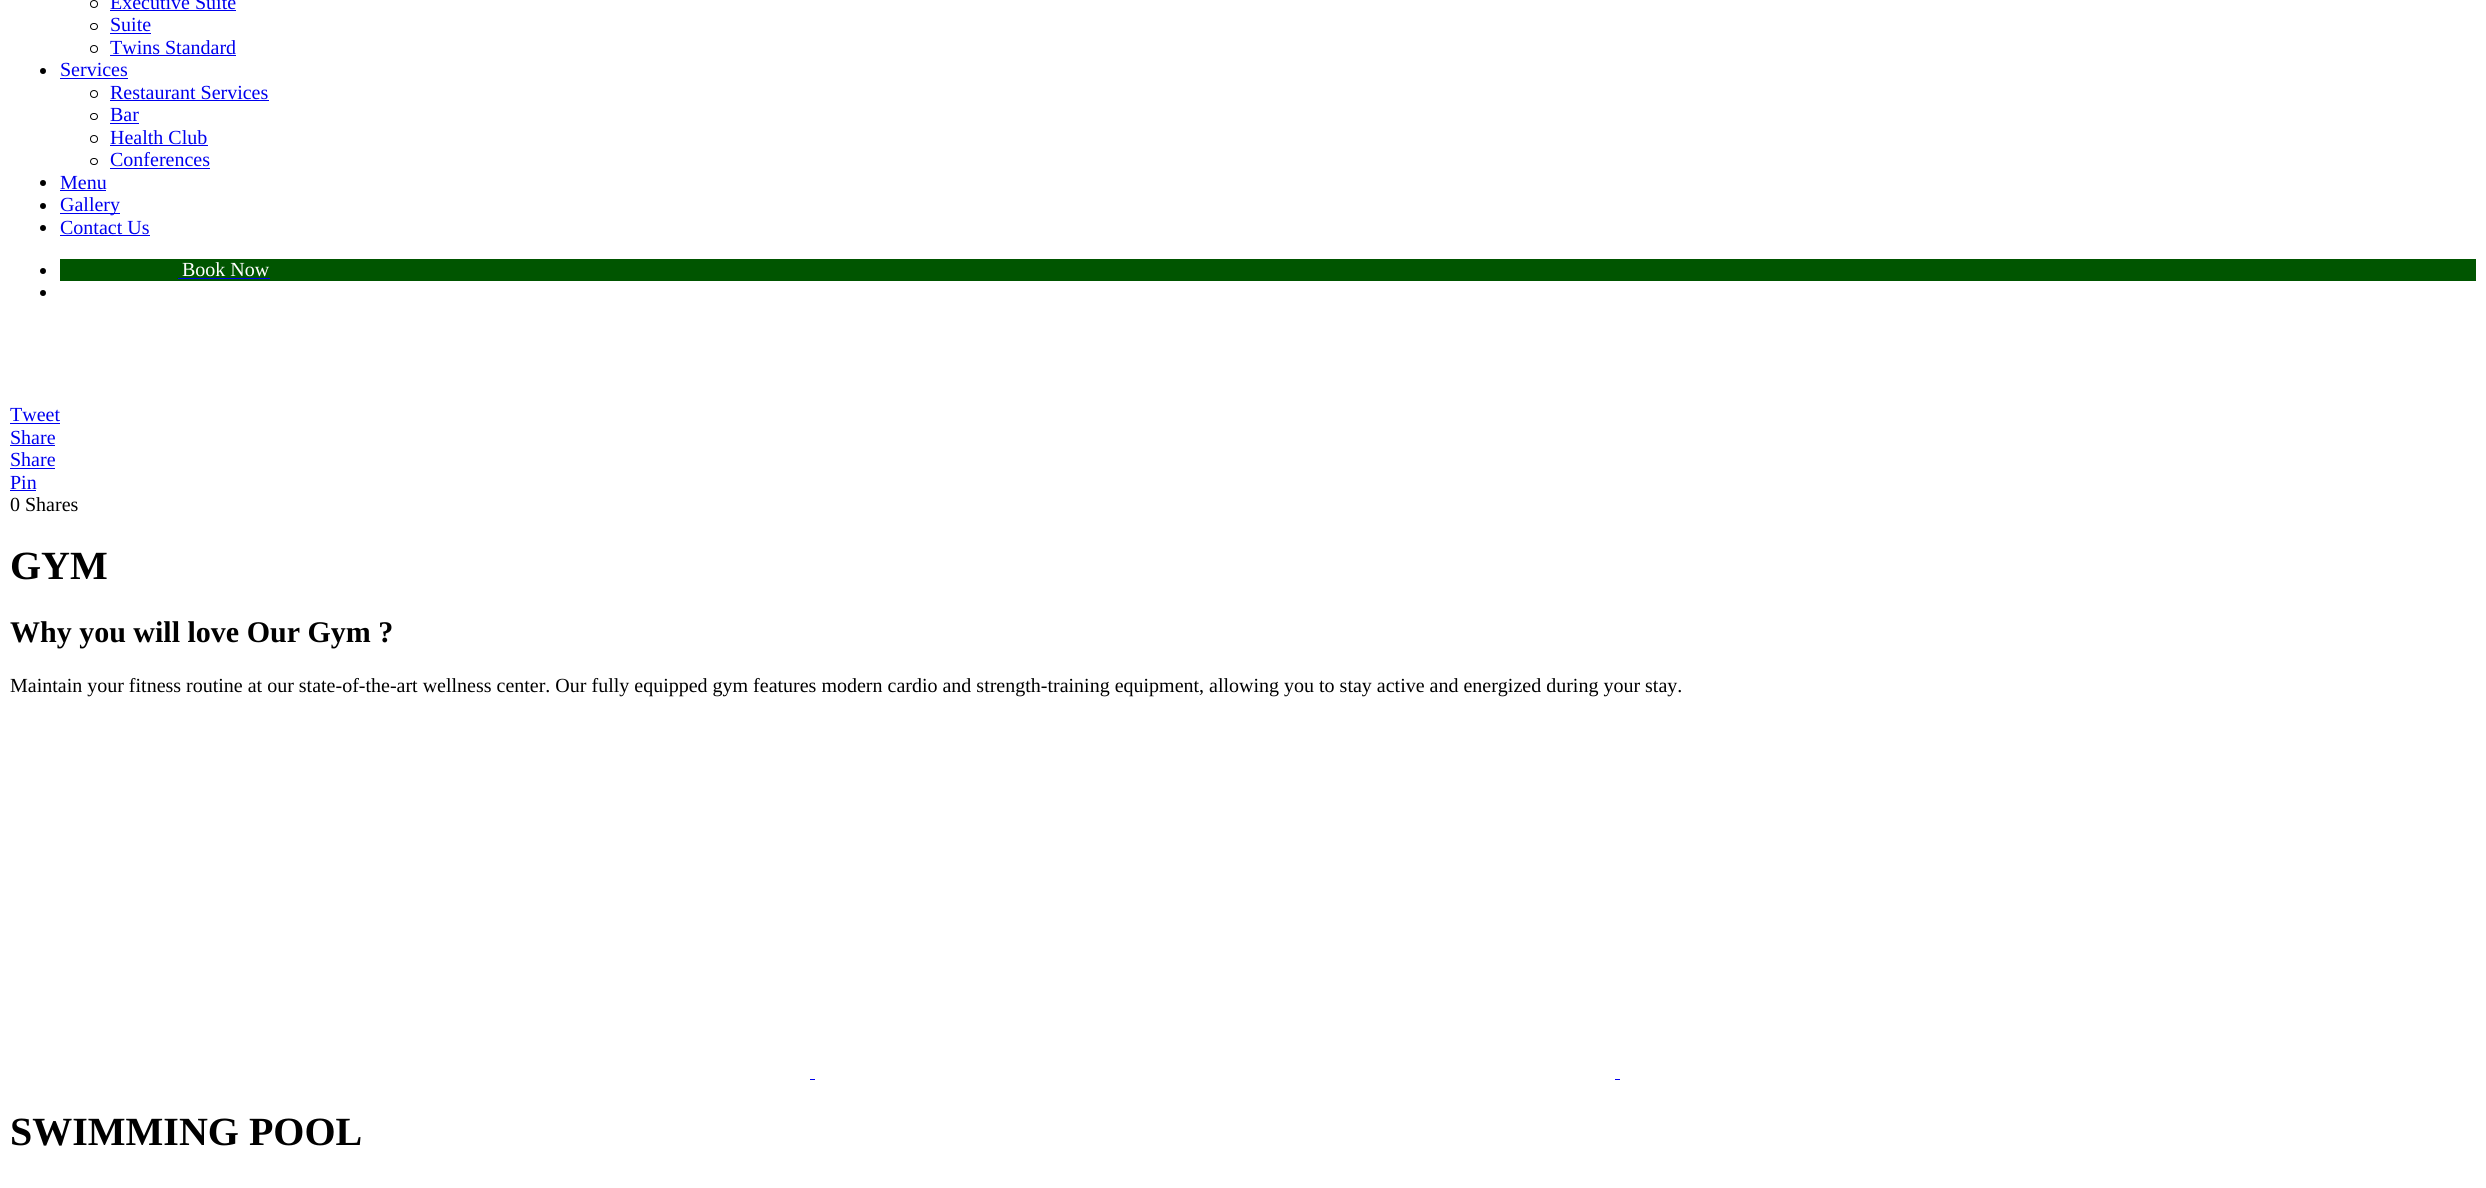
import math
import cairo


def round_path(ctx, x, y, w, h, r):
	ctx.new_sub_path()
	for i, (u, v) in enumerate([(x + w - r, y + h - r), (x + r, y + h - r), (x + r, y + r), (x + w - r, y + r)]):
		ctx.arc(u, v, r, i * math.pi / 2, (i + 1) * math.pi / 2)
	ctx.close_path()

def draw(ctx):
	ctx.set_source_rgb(1, 1, 1)
	ctx.paint()
	ctx.arc(94, 4, 3.5, 0, 2 * math.pi)
	ctx.set_source_rgb(0, 0, 0)
	ctx.set_line_width(1)
	ctx.stroke()
	ctx.select_font_face('Liberation Serif')
	ctx.set_font_size(20)
	ctx.set_source_rgb(0, 0, 0.933)
	ctx.move_to(110, 9)
	ctx.show_text('Executive Suite')
	ctx.rectangle(110, 10, 126, 1)
	ctx.fill()
	round_path(ctx, 90.5, 23.5, 7, 6, 3)
	ctx.set_source_rgb(0, 0, 0)
	ctx.stroke()
	ctx.set_source_rgb(0, 0, 0.933)
	ctx.move_to(110, 31)
	ctx.show_text('Suite')
	ctx.rectangle(110, 33, 41, 1)
	ctx.fill()
	ctx.arc(94, 49, 3.5, 0, 2 * math.pi)
	ctx.set_source_rgb(0, 0, 0)
	ctx.stroke()
	ctx.set_source_rgb(0, 0, 0.933)
	ctx.move_to(110, 54)
	ctx.show_text('Twins Standard')
	ctx.rectangle(110, 55, 126, 1)
	ctx.fill()
	ctx.set_source_rgb(0, 0, 0)
	ctx.arc(43, 71, 3, 0, 2 * math.pi)
	ctx.fill()
	ctx.set_source_rgb(0, 0, 0.933)
	ctx.move_to(60, 76)
	ctx.show_text('Services')
	ctx.rectangle(60, 78, 68, 1)
	ctx.fill()
	ctx.arc(94, 94, 3.5, 0, 2 * math.pi)
	ctx.set_source_rgb(0, 0, 0)
	ctx.stroke()
	ctx.set_source_rgb(0, 0, 0.933)
	ctx.move_to(110, 99)
	ctx.show_text('Restaurant Services')
	ctx.rectangle(110, 100, 159, 1)
	ctx.fill()
	round_path(ctx, 90.5, 113.5, 7, 6, 3)
	ctx.set_source_rgb(0, 0, 0)
	ctx.stroke()
	ctx.set_source_rgb(0, 0, 0.933)
	ctx.move_to(110, 121)
	ctx.show_text('Bar')
	ctx.rectangle(110, 123, 29, 1)
	ctx.fill()
	ctx.arc(94, 139, 3.5, 0, 2 * math.pi)
	ctx.set_source_rgb(0, 0, 0)
	ctx.stroke()
	ctx.set_source_rgb(0, 0, 0.933)
	ctx.move_to(110, 144)
	ctx.show_text('Health Club')
	ctx.rectangle(110, 145, 98, 1)
	ctx.fill()
	round_path(ctx, 90.5, 158.5, 7, 6, 3)
	ctx.set_source_rgb(0, 0, 0)
	ctx.stroke()
	ctx.set_source_rgb(0, 0, 0.933)
	ctx.move_to(110, 166)
	ctx.show_text('Conferences')
	ctx.rectangle(110, 168, 100, 1)
	ctx.fill()
	ctx.set_source_rgb(0, 0, 0)
	ctx.arc(43, 183, 3, 0, 2 * math.pi)
	ctx.fill()
	ctx.set_source_rgb(0, 0, 0.933)
	ctx.move_to(60, 189)
	ctx.show_text('Menu')
	ctx.rectangle(60, 190, 46, 1)
	ctx.fill()
	ctx.set_source_rgb(0, 0, 0)
	ctx.arc(43, 206, 3, 0, 2 * math.pi)
	ctx.fill()
	ctx.set_source_rgb(0, 0, 0.933)
	ctx.rectangle(60, 213, 60, 1)
	ctx.fill()
	ctx.move_to(60, 211)
	ctx.show_text('Gallery')
	ctx.set_source_rgb(0, 0, 0)
	ctx.new_path()
	ctx.arc(43, 228, 3, 0, 2 * math.pi)
	ctx.fill()
	ctx.set_source_rgb(0, 0, 0.933)
	ctx.move_to(60, 234)
	ctx.show_text('Contact Us')
	ctx.rectangle(60, 235, 90, 1)
	ctx.fill()
	ctx.set_source_rgb(0, 0, 0)
	ctx.arc(43, 271, 3, 0, 2 * math.pi)
	ctx.fill()
	ctx.set_source_rgb(0, 0.333, 0)
	ctx.rectangle(60, 259, 2416, 22)
	ctx.fill()
	ctx.set_source_rgb(1, 1, 1)
	ctx.move_to(182, 276)
	ctx.show_text('Book Now')
	ctx.set_source_rgb(0, 0, 0.933)
	ctx.rectangle(178, 278, 92, 1)
	ctx.fill()
	ctx.set_source_rgb(0, 0, 0)
	ctx.arc(43, 293, 3, 0, 2 * math.pi)
	ctx.fill()
	ctx.set_source_rgb(0, 0, 0.933)
	ctx.move_to(10, 421)
	ctx.show_text('Tweet')
	ctx.rectangle(10, 423, 50, 1)
	ctx.fill()
	ctx.move_to(10, 444)
	ctx.show_text('Share')
	ctx.rectangle(10, 445, 45, 1)
	ctx.fill()
	ctx.move_to(10, 466)
	ctx.show_text('Share')
	ctx.rectangle(10, 468, 45, 1)
	ctx.fill()
	ctx.move_to(10, 489)
	ctx.show_text('Pin')
	ctx.rectangle(10, 490, 26, 1)
	ctx.fill()
	ctx.set_source_rgb(0, 0, 0)
	ctx.move_to(10, 511)
	ctx.show_text('0 Shares')
	ctx.select_font_face('Liberation Serif', cairo.FONT_SLANT_NORMAL, cairo.FONT_WEIGHT_BOLD)
	ctx.set_font_size(40)
	ctx.move_to(10, 579)
	ctx.show_text('GYM')
	ctx.set_font_size(30)
	ctx.move_to(10, 642)
	ctx.show_text('Why you will love Our Gym ?')
	ctx.select_font_face('Liberation Serif')
	ctx.set_font_size(20)
	ctx.move_to(10, 692)
	ctx.show_text('Maintain your fitness routine at our state-of-the-art wellness center. Our fully equipped gym features modern cardio and strength-training equipment, allowing you to stay active and energized during your stay.')
	ctx.set_source_rgb(0, 0, 0.933)
	ctx.rectangle(810, 1079, 5, 1)
	ctx.fill()
	ctx.rectangle(1615, 1079, 5, 1)
	ctx.fill()
	ctx.select_font_face('Liberation Serif', cairo.FONT_SLANT_NORMAL, cairo.FONT_WEIGHT_BOLD)
	ctx.set_font_size(40)
	ctx.set_source_rgb(0, 0, 0)
	ctx.move_to(10, 1145)
	ctx.show_text('SWIMMING POOL')


surface = cairo.ImageSurface(cairo.FORMAT_RGB24, 2486, 1188)
ctx = cairo.Context(surface)
options = cairo.FontOptions()
options.set_hint_metrics(cairo.HINT_METRICS_OFF)
options.set_hint_style(cairo.HINT_STYLE_NONE)
ctx.set_font_options(options)
ctx.set_miter_limit(4)
draw(ctx)
surface.write_to_png('image.png')
